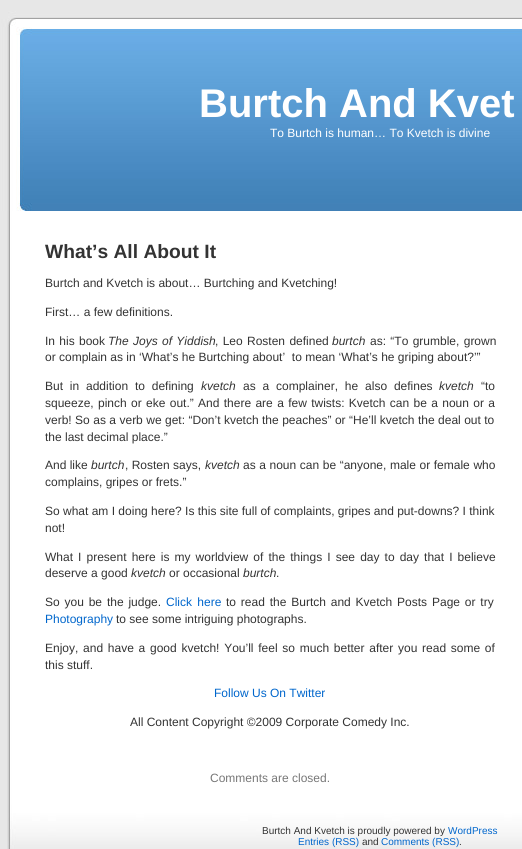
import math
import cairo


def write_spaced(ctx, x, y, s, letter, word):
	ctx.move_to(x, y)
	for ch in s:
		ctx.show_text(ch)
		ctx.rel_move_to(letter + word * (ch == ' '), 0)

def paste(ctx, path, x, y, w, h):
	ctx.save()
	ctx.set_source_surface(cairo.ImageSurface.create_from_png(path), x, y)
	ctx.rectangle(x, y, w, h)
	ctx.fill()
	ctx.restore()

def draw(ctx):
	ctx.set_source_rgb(0.906, 0.906, 0.906)
	ctx.paint()
	paste(ctx, 'media/1.png', 7, 211, 515, 594)
	paste(ctx, 'media/2.png', 1, 11, 521, 200)
	ctx.select_font_face('Liberation Sans', cairo.FONT_SLANT_NORMAL, cairo.FONT_WEIGHT_BOLD)
	ctx.set_font_size(40)
	ctx.set_source_rgb(1, 1, 1)
	ctx.move_to(199, 117)
	ctx.show_text('Burtch And Kvet')
	ctx.select_font_face('Liberation Sans')
	ctx.set_font_size(12)
	ctx.move_to(270, 137)
	ctx.show_text('To Burtch is human… To Kvetch is divine')
	ctx.select_font_face('Liberation Sans', cairo.FONT_SLANT_NORMAL, cairo.FONT_WEIGHT_BOLD)
	ctx.set_font_size(19.25)
	ctx.set_source_rgb(0.2, 0.2, 0.2)
	ctx.move_to(45, 258)
	ctx.show_text('What’s All About It')
	ctx.select_font_face('Liberation Sans')
	ctx.set_font_size(12)
	ctx.move_to(45, 287)
	ctx.show_text('Burtch and Kvetch is about… Burtching and Kvetching!')
	ctx.move_to(45, 316)
	ctx.show_text('First… a few definitions.')
	write_spaced(ctx, 45, 345, 'In his book', 0, 1)
	ctx.select_font_face('Liberation Sans', cairo.FONT_SLANT_ITALIC)
	write_spaced(ctx, 108, 345, 'The Joys of Yiddish', 0, 1)
	ctx.select_font_face('Liberation Sans')
	write_spaced(ctx, 215, 345, ', Leo Rosten defined', 0, 1)
	ctx.select_font_face('Liberation Sans', cairo.FONT_SLANT_ITALIC)
	ctx.move_to(332, 345)
	ctx.show_text('burtch')
	ctx.select_font_face('Liberation Sans')
	write_spaced(ctx, 370, 345, 'as: “To grumble, grown', 0, 1)
	ctx.move_to(45, 361)
	ctx.show_text('or complain as in ‘What’s he Burtching about’  to mean ‘What’s he griping about?’”')
	write_spaced(ctx, 45, 390, 'But in addition to defining', 0, 3.5)
	ctx.select_font_face('Liberation Sans', cairo.FONT_SLANT_ITALIC)
	ctx.move_to(201, 390)
	ctx.show_text('kvetch')
	ctx.select_font_face('Liberation Sans')
	write_spaced(ctx, 243, 390, 'as a complainer, he also defines', 0, 3.5)
	ctx.select_font_face('Liberation Sans', cairo.FONT_SLANT_ITALIC)
	ctx.move_to(439, 390)
	ctx.show_text('kvetch')
	ctx.select_font_face('Liberation Sans')
	ctx.move_to(481, 390)
	ctx.show_text('“to')
	write_spaced(ctx, 45, 407, 'squeeze, pinch or eke out.” And there are a few twists: Kvetch can be a noun or a', 0, 1)
	write_spaced(ctx, 45, 424, 'verb! So as a verb we get: “Don’t kvetch the peaches” or “He’ll kvetch the deal out to', 0, 0.1)
	ctx.move_to(45, 441)
	ctx.show_text('the last decimal place.”')
	ctx.move_to(45, 469)
	ctx.show_text('And like')
	ctx.select_font_face('Liberation Sans', cairo.FONT_SLANT_ITALIC)
	ctx.move_to(91, 469)
	ctx.show_text('burtch')
	ctx.select_font_face('Liberation Sans')
	ctx.move_to(125, 469)
	ctx.show_text(', Rosten says,')
	ctx.select_font_face('Liberation Sans', cairo.FONT_SLANT_ITALIC)
	ctx.move_to(205, 469)
	ctx.show_text('kvetch')
	ctx.select_font_face('Liberation Sans')
	write_spaced(ctx, 243, 469, 'as a noun can be “anyone, male or female who', 0, 0.25)
	for x, y, s in [
		(45, 486, 'complains, gripes or frets.”'),
		(45, 515, 'So what am I doing here? Is this site full of complaints, gripes and put-downs? I think'),
		(45, 532, 'not!'),
	]:
		ctx.move_to(x, y)
		ctx.show_text(s)
	write_spaced(ctx, 45, 561, 'What I present here is my worldview of the things I see day to day that I believe', 0, 1.75)
	ctx.move_to(45, 577)
	ctx.show_text('deserve a good')
	ctx.select_font_face('Liberation Sans', cairo.FONT_SLANT_ITALIC)
	ctx.move_to(131, 577)
	ctx.show_text('kvetch')
	ctx.select_font_face('Liberation Sans')
	ctx.move_to(169, 577)
	ctx.show_text('or occasional')
	ctx.select_font_face('Liberation Sans', cairo.FONT_SLANT_ITALIC)
	ctx.move_to(243, 577)
	ctx.show_text('burtch')
	ctx.select_font_face('Liberation Sans')
	ctx.move_to(276, 577)
	ctx.show_text('.')
	write_spaced(ctx, 45, 606, 'So you be the judge.', 0, 1.5)
	ctx.set_source_rgb(0, 0.4, 0.8)
	write_spaced(ctx, 166, 606, 'Click here', 0, 2)
	ctx.set_source_rgb(0.2, 0.2, 0.2)
	write_spaced(ctx, 226, 606, 'to read the Burtch and Kvetch Posts Page or try', 0, 1.5)
	ctx.set_source_rgb(0, 0.4, 0.8)
	ctx.move_to(45, 623)
	ctx.show_text('Photography')
	ctx.set_source_rgb(0.2, 0.2, 0.2)
	ctx.move_to(116, 623)
	ctx.show_text('to see some intriguing photographs.')
	write_spaced(ctx, 45, 652, 'Enjoy, and have a good kvetch! You’ll feel so much better after you read some of', 0, 1.4)
	ctx.move_to(45, 669)
	ctx.show_text('this stuff.')
	ctx.set_source_rgb(0, 0.4, 0.8)
	ctx.move_to(214, 697)
	ctx.show_text('Follow Us On Twitter')
	ctx.set_source_rgb(0.2, 0.2, 0.2)
	ctx.move_to(130, 726)
	ctx.show_text('All Content Copyright ©2009 Corporate Comedy Inc.')
	ctx.set_source_rgb(0.467, 0.467, 0.467)
	ctx.move_to(210, 782)
	ctx.show_text('Comments are closed.')
	paste(ctx, 'media/3.png', 7, 805, 515, 44)
	ctx.set_font_size(10)
	ctx.set_source_rgb(0.2, 0.2, 0.2)
	ctx.move_to(262, 834)
	ctx.show_text('Burtch And Kvetch is proudly powered by')
	ctx.set_source_rgb(0, 0.4, 0.8)
	ctx.move_to(448, 834)
	ctx.show_text('WordPress')
	ctx.move_to(298, 845)
	ctx.show_text('Entries (RSS)')
	ctx.set_source_rgb(0.2, 0.2, 0.2)
	ctx.move_to(362, 845)
	ctx.show_text('and')
	ctx.set_source_rgb(0, 0.4, 0.8)
	ctx.move_to(381, 845)
	ctx.show_text('Comments (RSS)')
	ctx.set_source_rgb(0.2, 0.2, 0.2)
	ctx.move_to(459, 845)
	ctx.show_text('.')


surface = cairo.ImageSurface(cairo.FORMAT_RGB24, 522, 849)
ctx = cairo.Context(surface)
options = cairo.FontOptions()
options.set_hint_metrics(cairo.HINT_METRICS_OFF)
options.set_hint_style(cairo.HINT_STYLE_NONE)
ctx.set_font_options(options)
ctx.set_miter_limit(4)
draw(ctx)
surface.write_to_png('image.png')
